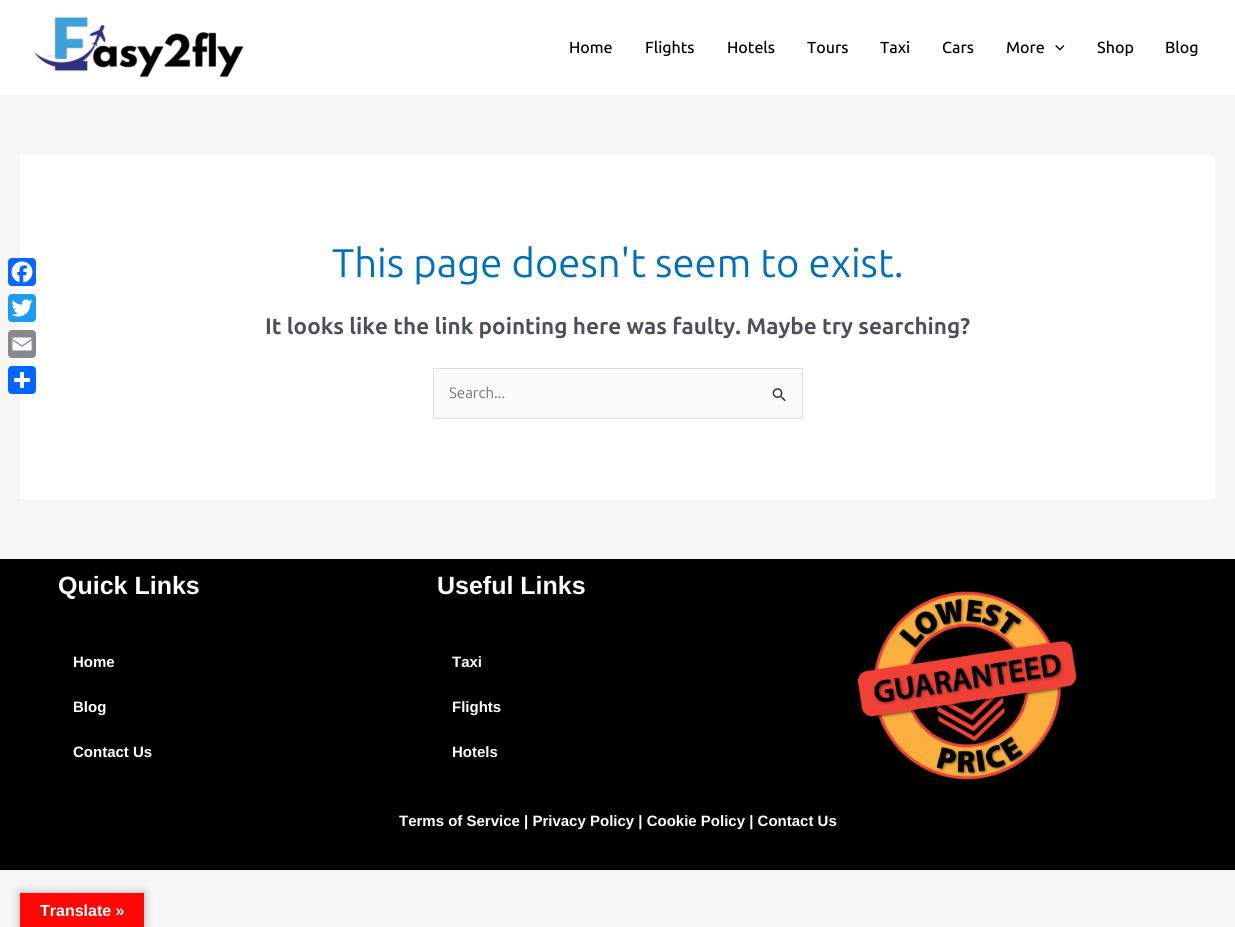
import math
import cairo


def round_path(ctx, x, y, w, h, r):
	ctx.new_sub_path()
	for i, (u, v) in enumerate([(x + w - r, y + h - r), (x + r, y + h - r), (x + r, y + r), (x + w - r, y + r)]):
		ctx.arc(u, v, r, i * math.pi / 2, (i + 1) * math.pi / 2)
	ctx.close_path()

def blur_box(ctx, x, y, w, h, r, blur, alpha):
	ctx.push_group_with_content(cairo.CONTENT_ALPHA)
	ctx.set_operator(cairo.OPERATOR_SOURCE)
	for i in range(15, -16, -2):
		e = blur * i / 6
		if min(w, h) + 2 * e > 0:
			ctx.set_source_rgba(0, 0, 0, alpha * math.erfc((i - 1) / 8.5) / 2)
			round_path(ctx, x - e, y - e, w + 2 * e, h + 2 * e, max(0, min(r + e + blur * .6, min(w, h) / 2 + e)))
			ctx.fill()
	ctx.mask(ctx.pop_group())

def paste(ctx, path, x, y, w, h):
	ctx.save()
	ctx.set_source_surface(cairo.ImageSurface.create_from_png(path), x, y)
	ctx.rectangle(x, y, w, h)
	ctx.fill()
	ctx.restore()

def draw(ctx):
	ctx.set_source_rgb(0.961, 0.961, 0.961)
	ctx.paint()
	ctx.set_source_rgb(1, 1, 1)
	ctx.rectangle(20, 155, 1195, 344)
	ctx.fill()
	ctx.set_source_rgb(0.031, 0.4, 1)
	round_path(ctx, 8, 258, 28, 28, 4)
	ctx.fill()
	paste(ctx, 'media/1.png', 11, 261, 22, 22)
	ctx.set_source_rgb(0.114, 0.608, 0.941)
	round_path(ctx, 8, 294, 28, 28, 4)
	ctx.fill()
	paste(ctx, 'media/2.png', 11, 299, 22, 18)
	ctx.set_source_rgb(0.533, 0.537, 0.565)
	round_path(ctx, 8, 330, 28, 28, 4)
	ctx.fill()
	paste(ctx, 'media/3.png', 12, 337, 20, 14)
	ctx.set_source_rgb(0.004, 0.4, 1)
	round_path(ctx, 8, 366, 28, 28, 4)
	ctx.fill()
	ctx.set_source_rgb(1, 1, 1)
	ctx.rectangle(20, 372, 4, 16)
	ctx.rectangle(14, 378, 16, 4)
	ctx.rectangle(0, 0, 1235, 95)
	ctx.fill()
	paste(ctx, 'media/4.png', 34, 17, 210, 61)
	ctx.select_font_face('Ubuntu Medium')
	ctx.set_font_size(16)
	ctx.set_source_rgb(0, 0, 0)
	for x, y, s in [
		(569, 53, 'Home'),
		(645, 53, 'Flights'),
		(727, 53, 'Hotels'),
		(807, 53, 'Tours'),
		(880, 53, 'Taxi'),
		(942, 53, 'Cars'),
		(1006, 53, 'More'),
	]:
		ctx.move_to(x, y)
		ctx.show_text(s)
	paste(ctx, 'media/5.png', 1055, 45, 10, 6)
	ctx.move_to(1097, 53)
	ctx.show_text('Shop')
	ctx.move_to(1165, 53)
	ctx.show_text('Blog')
	ctx.select_font_face('Ubuntu')
	ctx.set_font_size(40)
	ctx.set_source_rgb(0.004, 0.439, 0.725)
	ctx.move_to(332, 277)
	ctx.show_text('This page doesn\'t seem to exist.')
	ctx.select_font_face('Ubuntu', cairo.FONT_SLANT_NORMAL, cairo.FONT_WEIGHT_BOLD)
	ctx.set_font_size(22.5)
	ctx.set_source_rgb(0.294, 0.31, 0.345)
	ctx.move_to(265, 334)
	ctx.show_text('It looks like the link pointing here was faulty. Maybe try searching?')
	ctx.set_source_rgb(0.98, 0.98, 0.98)
	round_path(ctx, 433.5, 368.5, 369, 50, 1.5)
	ctx.fill_preserve()
	ctx.set_source_rgb(0.867, 0.867, 0.867)
	ctx.set_line_width(1)
	ctx.stroke()
	ctx.select_font_face('Ubuntu')
	ctx.set_font_size(15)
	ctx.set_source_rgb(0.459, 0.459, 0.459)
	ctx.move_to(449, 398)
	ctx.show_text('Search...')
	paste(ctx, 'media/6.png', 772, 388, 14, 14)
	ctx.set_source_rgb(0, 0, 0)
	ctx.rectangle(0, 559, 1235, 311)
	ctx.fill()
	ctx.select_font_face('Liberation Sans', cairo.FONT_SLANT_NORMAL, cairo.FONT_WEIGHT_BOLD)
	ctx.set_font_size(25)
	ctx.set_source_rgb(1, 1, 1)
	ctx.move_to(58, 594)
	ctx.show_text('Quick Links')
	ctx.set_font_size(15)
	for x, y, s in [
		(73, 667, 'Home'),
		(73, 712, 'Blog'),
		(73, 757, 'Contact Us'),
	]:
		ctx.move_to(x, y)
		ctx.show_text(s)
	ctx.set_font_size(25)
	ctx.move_to(437, 594)
	ctx.show_text('Useful Links')
	ctx.set_font_size(15)
	for x, y, s in [
		(452, 667, 'Taxi'),
		(452, 712, 'Flights'),
		(452, 757, 'Hotels'),
	]:
		ctx.move_to(x, y)
		ctx.show_text(s)
	paste(ctx, 'media/7.png', 857, 591, 220, 189)
	ctx.move_to(399, 826)
	ctx.show_text('Terms of Service | Privacy Policy | Cookie Policy | Contact Us')
	ctx.set_source_rgb(0, 0, 0)
	blur_box(ctx, 20, 893, 124, 34, 0, 4.5, 0.3)
	ctx.set_source_rgb(1, 0.02, 0.02)
	ctx.rectangle(20, 893, 124, 34)
	ctx.fill()
	ctx.set_font_size(16)
	ctx.set_source_rgb(1, 1, 1)
	ctx.move_to(40, 916)
	ctx.show_text('Translate »')


surface = cairo.ImageSurface(cairo.FORMAT_RGB24, 1235, 927)
ctx = cairo.Context(surface)
options = cairo.FontOptions()
options.set_hint_metrics(cairo.HINT_METRICS_OFF)
options.set_hint_style(cairo.HINT_STYLE_NONE)
ctx.set_font_options(options)
ctx.set_miter_limit(4)
draw(ctx)
surface.write_to_png('image.png')
